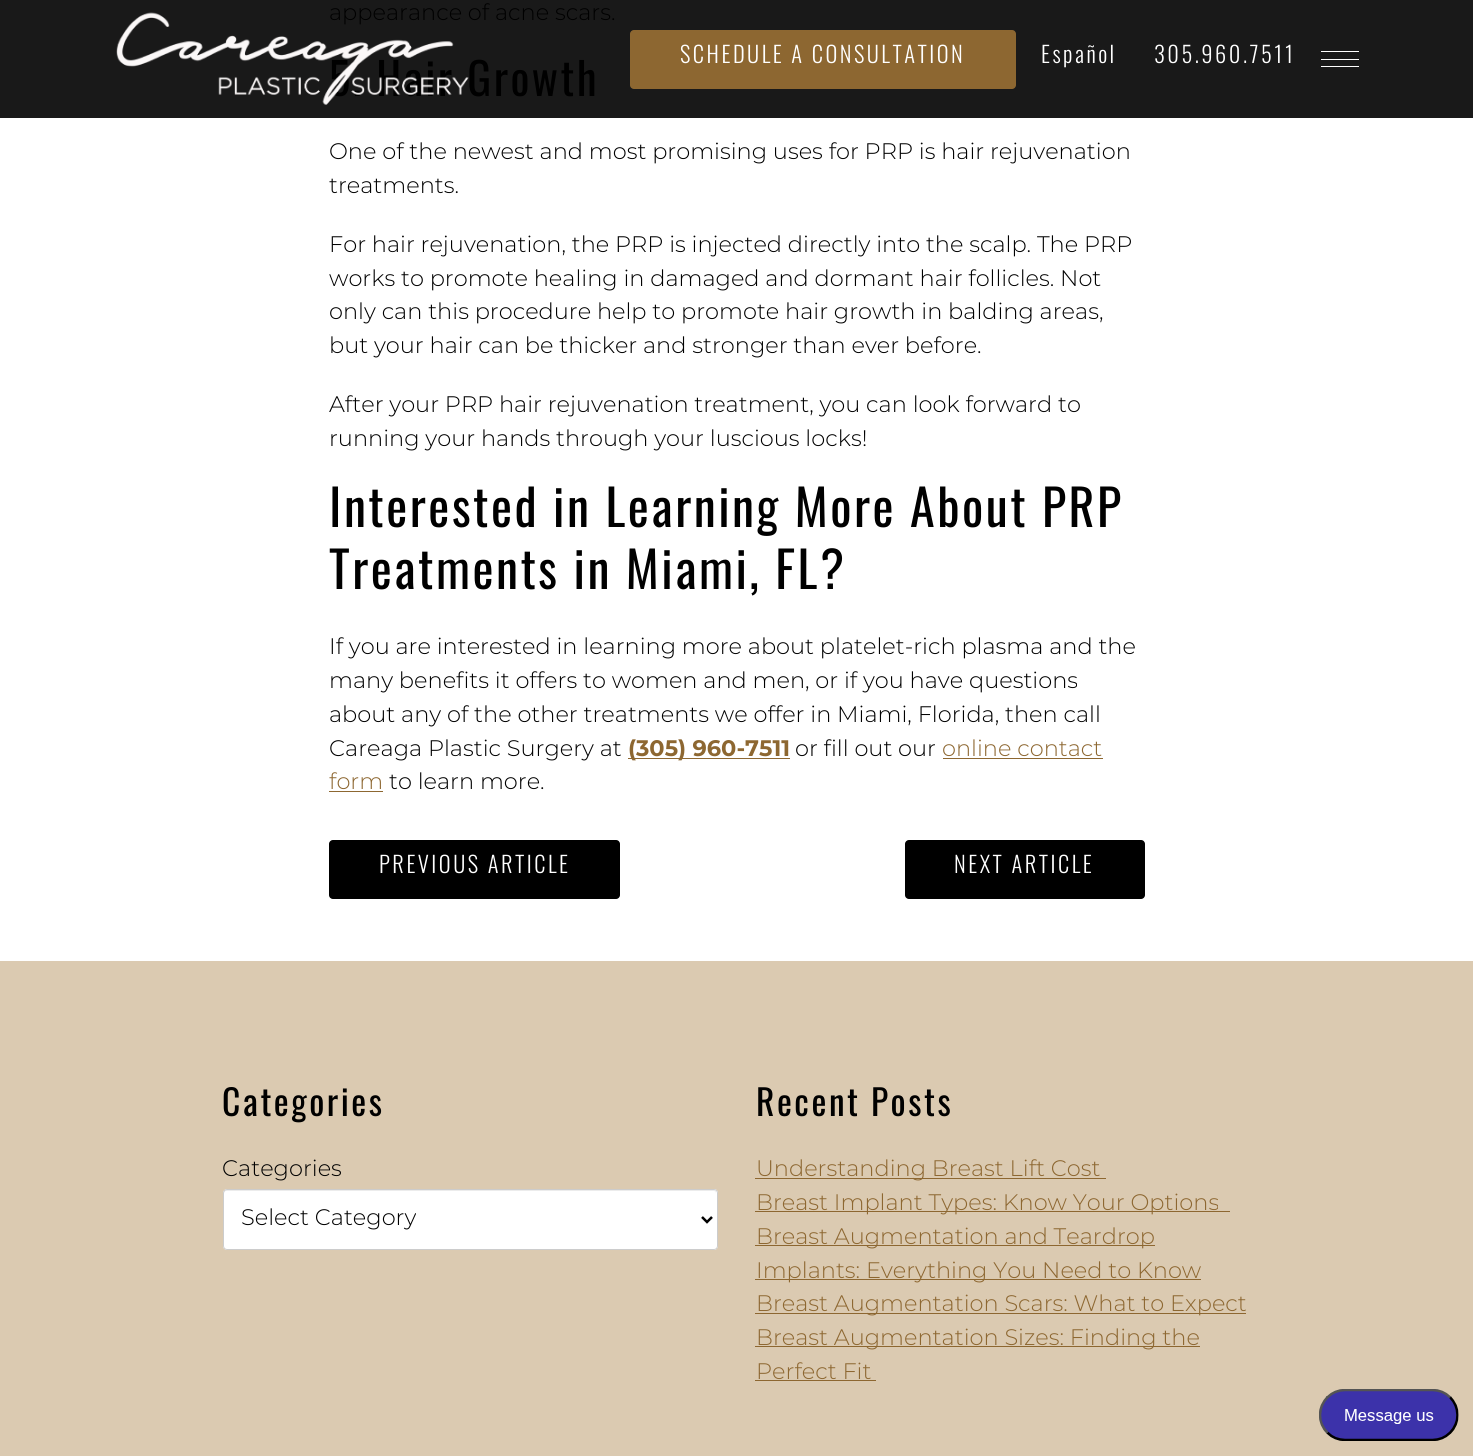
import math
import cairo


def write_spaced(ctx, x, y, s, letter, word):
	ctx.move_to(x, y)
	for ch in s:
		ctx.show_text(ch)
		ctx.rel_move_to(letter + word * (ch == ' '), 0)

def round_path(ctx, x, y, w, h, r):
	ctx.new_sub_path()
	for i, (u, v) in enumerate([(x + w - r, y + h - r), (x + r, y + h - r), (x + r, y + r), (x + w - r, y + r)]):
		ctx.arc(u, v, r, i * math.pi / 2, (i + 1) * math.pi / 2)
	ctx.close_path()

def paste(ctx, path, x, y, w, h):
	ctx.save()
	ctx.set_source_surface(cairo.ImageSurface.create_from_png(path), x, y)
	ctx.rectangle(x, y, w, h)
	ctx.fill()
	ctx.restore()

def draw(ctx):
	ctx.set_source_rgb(1, 1, 1)
	ctx.paint()
	ctx.set_source_rgb(0.098, 0.098, 0.098)
	ctx.rectangle(0, 0, 1473, 118)
	ctx.fill()
	ctx.select_font_face('Montserrat Light')
	ctx.set_font_size(22.5)
	ctx.set_source_rgb(0, 0, 0)
	ctx.move_to(329, 20)
	ctx.show_text('appearance of acne scars.')
	ctx.select_font_face('Oswald')
	ctx.set_font_size(44.5)
	write_spaced(ctx, 329, 96, '5. Hair Growth', 2.5, 0)
	ctx.select_font_face('Montserrat Light')
	ctx.set_font_size(22.5)
	for x, y, s in [
		(329, 159, 'One of the newest and most promising uses for PRP is hair rejuvenation'),
		(329, 193, 'treatments.'),
		(329, 252, 'For hair rejuvenation, the PRP is injected directly into the scalp. The PRP'),
		(329, 286, 'works to promote healing in damaged and dormant hair follicles. Not'),
		(329, 319, 'only can this procedure help to promote hair growth in balding areas,'),
		(329, 353, 'but your hair can be thicker and stronger than ever before.'),
		(329, 412, 'After your PRP hair rejuvenation treatment, you can look forward to'),
		(329, 446, 'running your hands through your luscious locks!'),
	]:
		ctx.move_to(x, y)
		ctx.show_text(s)
	ctx.select_font_face('Oswald')
	ctx.set_font_size(50)
	write_spaced(ctx, 329, 527, 'Interested in Learning More About PRP', 2.5, 0)
	write_spaced(ctx, 329, 589, 'Treatments in Miami, FL?', 2.5, 0)
	ctx.select_font_face('Montserrat Light')
	ctx.set_font_size(22.5)
	for x, y, s in [
		(329, 654, 'If you are interested in learning more about platelet-rich plasma and the'),
		(329, 688, 'many benefits it offers to women and men, or if you have questions'),
		(329, 722, 'about any of the other treatments we offer in Miami, Florida, then call'),
		(329, 756, 'Careaga Plastic Surgery at'),
	]:
		ctx.move_to(x, y)
		ctx.show_text(s)
	ctx.set_source_rgb(0.553, 0.404, 0.192)
	ctx.rectangle(628, 758, 162, 1)
	ctx.fill()
	ctx.select_font_face('Montserrat', cairo.FONT_SLANT_NORMAL, cairo.FONT_WEIGHT_BOLD)
	ctx.move_to(628, 756)
	ctx.show_text('(305) 960-7511')
	ctx.select_font_face('Montserrat Light')
	ctx.set_source_rgb(0, 0, 0)
	ctx.move_to(795, 756)
	ctx.show_text('or fill out our')
	ctx.set_source_rgb(0.553, 0.404, 0.192)
	ctx.move_to(942, 756)
	ctx.show_text('online contact')
	ctx.rectangle(943, 758, 160, 1)
	ctx.fill()
	ctx.move_to(329, 789)
	ctx.show_text('form')
	ctx.rectangle(329, 791, 54, 1)
	ctx.fill()
	ctx.set_source_rgb(0, 0, 0)
	ctx.move_to(389, 789)
	ctx.show_text('to learn more.')
	round_path(ctx, 329, 840, 291, 59, 4)
	ctx.fill()
	ctx.select_font_face('Oswald Light')
	ctx.set_source_rgb(1, 1, 1)
	write_spaced(ctx, 379, 873, 'PREVIOUS ARTICLE', 2.5, 0)
	ctx.set_source_rgb(0, 0, 0)
	round_path(ctx, 905, 840, 240, 59, 4)
	ctx.fill()
	ctx.set_source_rgb(1, 1, 1)
	write_spaced(ctx, 954, 873, 'NEXT ARTICLE', 2.5, 0)
	ctx.set_source_rgb(0.859, 0.792, 0.694)
	ctx.rectangle(0, 961, 1473, 495)
	ctx.fill()
	ctx.select_font_face('Oswald')
	ctx.set_font_size(35.5)
	ctx.set_source_rgb(0, 0, 0)
	write_spaced(ctx, 222, 1116, 'Categories', 2.5, 0)
	ctx.select_font_face('Montserrat Light')
	ctx.set_font_size(22.5)
	ctx.move_to(222, 1176)
	ctx.show_text('Categories')
	ctx.set_source_rgb(1, 1, 1)
	round_path(ctx, 223, 1189, 495, 61, 4)
	ctx.fill()
	ctx.set_source_rgb(0.925, 0.925, 0.925)
	ctx.new_path()
	ctx.move_to(226, 1191)
	ctx.line_to(714, 1191)
	ctx.curve_to(715, 1191, 716, 1192, 716, 1194)
	ctx.curve_to(716, 1192, 716, 1190, 714, 1190)
	ctx.line_to(226, 1190)
	ctx.line_to(224, 1191)
	ctx.line_to(224, 1194)
	ctx.curve_to(224, 1192, 225, 1191, 226, 1191)
	ctx.close_path()
	ctx.fill()
	round_path(ctx, 223.5, 1189.5, 494, 60, 3.5)
	ctx.set_source_rgb(0.8, 0.8, 0.8)
	ctx.set_line_width(1)
	ctx.stroke()
	ctx.new_path()
	ctx.move_to(702, 1217)
	ctx.line_to(707, 1222)
	ctx.line_to(712, 1217)
	ctx.set_source_rgb(0, 0, 0)
	ctx.set_line_width(2.5)
	ctx.stroke()
	ctx.move_to(241, 1225)
	ctx.show_text('Select Category')
	ctx.select_font_face('Oswald')
	ctx.set_font_size(35.5)
	write_spaced(ctx, 756, 1116, 'Recent Posts', 2.5, 0)
	ctx.set_source_rgb(0.553, 0.404, 0.192)
	ctx.rectangle(755, 1178, 351, 1)
	ctx.fill()
	ctx.select_font_face('Montserrat Light')
	ctx.set_font_size(22.5)
	ctx.move_to(756, 1176)
	ctx.show_text('Understanding Breast Lift Cost')
	ctx.rectangle(755, 1211, 475, 1)
	ctx.fill()
	ctx.move_to(756, 1210)
	ctx.show_text('Breast Implant Types: Know Your Options')
	ctx.rectangle(755, 1245, 400, 1)
	ctx.fill()
	ctx.move_to(756, 1244)
	ctx.show_text('Breast Augmentation and Teardrop')
	ctx.rectangle(755, 1279, 446, 1)
	ctx.fill()
	ctx.move_to(756, 1278)
	ctx.show_text('Implants: Everything You Need to Know')
	ctx.rectangle(755, 1313, 491, 1)
	ctx.fill()
	ctx.move_to(756, 1311)
	ctx.show_text('Breast Augmentation Scars: What to Expect')
	ctx.rectangle(755, 1346, 445, 1)
	ctx.fill()
	ctx.move_to(756, 1345)
	ctx.show_text('Breast Augmentation Sizes: Finding the')
	ctx.move_to(756, 1379)
	ctx.show_text('Perfect Fit')
	ctx.rectangle(755, 1380, 121, 1)
	ctx.fill()
	paste(ctx, 'media/1.png', 116, 12, 353, 93)
	round_path(ctx, 630, 30, 386, 59, 4)
	ctx.fill()
	ctx.select_font_face('Oswald Light')
	ctx.set_source_rgb(1, 1, 1)
	for x, y, s in [
		(680, 63, 'SCHEDULE A CONSULTATION'),
		(1041, 63, 'Español'),
		(1154, 63, '305.960.7511'),
	]:
		write_spaced(ctx, x, y, s, 2.5, 0)
	ctx.rectangle(1321, 51, 38, 1)
	ctx.rectangle(1321, 59, 38, 1)
	ctx.rectangle(1321, 66, 38, 1)
	ctx.fill()
	paste(ctx, 'media/2.png', 1319, 1389, 140, 52)


surface = cairo.ImageSurface(cairo.FORMAT_RGB24, 1473, 1456)
ctx = cairo.Context(surface)
options = cairo.FontOptions()
options.set_hint_metrics(cairo.HINT_METRICS_OFF)
options.set_hint_style(cairo.HINT_STYLE_NONE)
ctx.set_font_options(options)
ctx.set_miter_limit(4)
draw(ctx)
surface.write_to_png('image.png')
